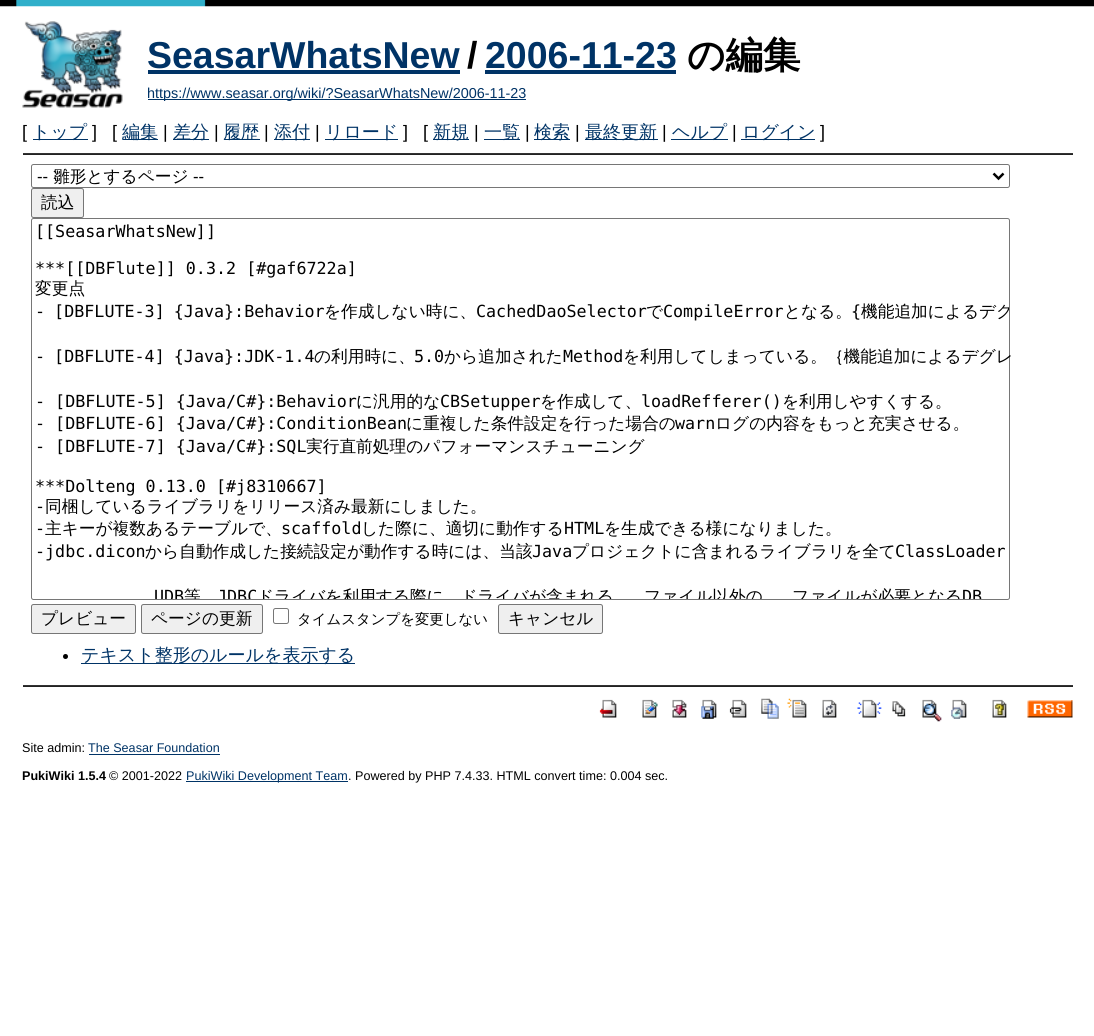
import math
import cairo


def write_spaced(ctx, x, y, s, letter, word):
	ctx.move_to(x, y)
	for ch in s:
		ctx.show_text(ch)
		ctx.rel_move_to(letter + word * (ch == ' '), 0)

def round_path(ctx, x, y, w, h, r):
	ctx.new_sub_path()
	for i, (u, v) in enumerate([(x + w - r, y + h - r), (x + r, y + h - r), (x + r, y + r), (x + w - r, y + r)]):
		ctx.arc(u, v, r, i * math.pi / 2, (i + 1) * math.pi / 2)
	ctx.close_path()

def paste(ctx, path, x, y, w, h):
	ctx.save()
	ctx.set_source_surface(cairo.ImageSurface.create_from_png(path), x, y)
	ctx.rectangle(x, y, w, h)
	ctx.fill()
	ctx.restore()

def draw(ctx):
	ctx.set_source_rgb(1, 1, 1)
	ctx.paint()
	paste(ctx, 'media/1.png', 0, 0, 1094, 7)
	paste(ctx, 'media/2.png', 22, 21, 101, 87)
	ctx.select_font_face('Liberation Sans', cairo.FONT_SLANT_NORMAL, cairo.FONT_WEIGHT_BOLD)
	ctx.set_font_size(37.5)
	ctx.set_source_rgb(0, 0.2, 0.4)
	ctx.move_to(147, 68)
	ctx.show_text('SeasarWhatsNew')
	ctx.rectangle(148, 70, 312, 4)
	ctx.fill()
	ctx.set_source_rgb(0, 0, 0)
	ctx.move_to(467, 68)
	ctx.show_text('/')
	ctx.set_source_rgb(0, 0.2, 0.4)
	ctx.move_to(485, 68)
	ctx.show_text('2006-11-23')
	ctx.rectangle(485, 70, 191, 4)
	ctx.fill()
	ctx.select_font_face('WenQuanYi Zen Hei', cairo.FONT_SLANT_NORMAL, cairo.FONT_WEIGHT_BOLD)
	ctx.set_source_rgb(0, 0, 0)
	ctx.move_to(687, 68)
	ctx.show_text('の編集')
	ctx.set_source_rgb(0, 0.2, 0.4)
	ctx.rectangle(148, 99, 378, 1)
	ctx.fill()
	ctx.select_font_face('Liberation Sans')
	ctx.set_font_size(14.4)
	ctx.move_to(147, 98)
	ctx.show_text('https://www.seasar.org/wiki/?SeasarWhatsNew/2006-11-23')
	ctx.set_font_size(18)
	ctx.set_source_rgb(0, 0, 0)
	ctx.move_to(22, 138)
	ctx.show_text('[')
	ctx.set_source_rgb(0, 0.2, 0.4)
	ctx.rectangle(33, 139, 55, 1)
	ctx.fill()
	ctx.select_font_face('WenQuanYi Zen Hei Medium')
	ctx.move_to(32, 138)
	ctx.show_text('トップ')
	ctx.select_font_face('Liberation Sans')
	ctx.set_source_rgb(0, 0, 0)
	ctx.move_to(92, 138)
	ctx.show_text(']')
	ctx.move_to(112, 138)
	ctx.show_text('[')
	ctx.set_source_rgb(0, 0.2, 0.4)
	ctx.rectangle(123, 139, 35, 1)
	ctx.fill()
	ctx.select_font_face('WenQuanYi Zen Hei Medium')
	ctx.move_to(122, 138)
	ctx.show_text('編集')
	ctx.select_font_face('Liberation Sans')
	ctx.set_source_rgb(0, 0, 0)
	ctx.move_to(163, 138)
	ctx.show_text('|')
	ctx.set_source_rgb(0, 0.2, 0.4)
	ctx.rectangle(173, 139, 36, 1)
	ctx.fill()
	ctx.select_font_face('WenQuanYi Zen Hei Medium')
	ctx.move_to(173, 138)
	ctx.show_text('差分')
	ctx.select_font_face('Liberation Sans')
	ctx.set_source_rgb(0, 0, 0)
	ctx.move_to(214, 138)
	ctx.show_text('|')
	ctx.set_source_rgb(0, 0.2, 0.4)
	ctx.rectangle(224, 139, 36, 1)
	ctx.fill()
	ctx.select_font_face('WenQuanYi Zen Hei Medium')
	ctx.move_to(223, 138)
	ctx.show_text('履歴')
	ctx.select_font_face('Liberation Sans')
	ctx.set_source_rgb(0, 0, 0)
	ctx.move_to(264, 138)
	ctx.show_text('|')
	ctx.set_source_rgb(0, 0.2, 0.4)
	ctx.rectangle(274, 139, 36, 1)
	ctx.fill()
	ctx.select_font_face('WenQuanYi Zen Hei Medium')
	ctx.move_to(274, 138)
	ctx.show_text('添付')
	ctx.select_font_face('Liberation Sans')
	ctx.set_source_rgb(0, 0, 0)
	ctx.move_to(315, 138)
	ctx.show_text('|')
	ctx.set_source_rgb(0, 0.2, 0.4)
	ctx.rectangle(325, 139, 73, 1)
	ctx.fill()
	ctx.select_font_face('WenQuanYi Zen Hei Medium')
	ctx.move_to(325, 138)
	ctx.show_text('リロード')
	ctx.select_font_face('Liberation Sans')
	ctx.set_source_rgb(0, 0, 0)
	ctx.move_to(403, 138)
	ctx.show_text(']')
	ctx.move_to(423, 138)
	ctx.show_text('[')
	ctx.set_source_rgb(0, 0.2, 0.4)
	ctx.rectangle(433, 139, 36, 1)
	ctx.fill()
	ctx.select_font_face('WenQuanYi Zen Hei Medium')
	ctx.move_to(433, 138)
	ctx.show_text('新規')
	ctx.select_font_face('Liberation Sans')
	ctx.set_source_rgb(0, 0, 0)
	ctx.move_to(474, 138)
	ctx.show_text('|')
	ctx.set_source_rgb(0, 0.2, 0.4)
	ctx.rectangle(484, 139, 36, 1)
	ctx.fill()
	ctx.select_font_face('WenQuanYi Zen Hei Medium')
	ctx.move_to(484, 138)
	ctx.show_text('一覧')
	ctx.select_font_face('Liberation Sans')
	ctx.set_source_rgb(0, 0, 0)
	ctx.move_to(525, 138)
	ctx.show_text('|')
	ctx.set_source_rgb(0, 0.2, 0.4)
	ctx.rectangle(534, 139, 36, 1)
	ctx.fill()
	ctx.select_font_face('WenQuanYi Zen Hei Medium')
	ctx.move_to(534, 138)
	ctx.show_text('検索')
	ctx.select_font_face('Liberation Sans')
	ctx.set_source_rgb(0, 0, 0)
	ctx.move_to(575, 138)
	ctx.show_text('|')
	ctx.set_source_rgb(0, 0.2, 0.4)
	ctx.rectangle(585, 139, 73, 1)
	ctx.fill()
	ctx.select_font_face('WenQuanYi Zen Hei Medium')
	ctx.move_to(585, 138)
	ctx.show_text('最終更新')
	ctx.select_font_face('Liberation Sans')
	ctx.set_source_rgb(0, 0, 0)
	ctx.move_to(662, 138)
	ctx.show_text('|')
	ctx.set_source_rgb(0, 0.2, 0.4)
	ctx.rectangle(671, 139, 57, 1)
	ctx.fill()
	ctx.select_font_face('WenQuanYi Zen Hei Medium')
	ctx.move_to(672, 138)
	ctx.show_text('ヘルプ')
	ctx.select_font_face('Liberation Sans')
	ctx.set_source_rgb(0, 0, 0)
	ctx.move_to(732, 138)
	ctx.show_text('|')
	ctx.set_source_rgb(0, 0.2, 0.4)
	ctx.rectangle(741, 139, 74, 1)
	ctx.fill()
	ctx.select_font_face('WenQuanYi Zen Hei Medium')
	ctx.move_to(742, 138)
	ctx.show_text('ログイン')
	ctx.select_font_face('Liberation Sans')
	ctx.set_source_rgb(0, 0, 0)
	ctx.move_to(820, 138)
	ctx.show_text(']')
	ctx.set_source_rgb(0.2, 0.2, 0.2)
	ctx.rectangle(23, 153, 1050, 1)
	ctx.fill()
	ctx.set_source_rgb(0.133, 0.133, 0.133)
	ctx.rectangle(23, 154, 1050, 1)
	ctx.fill()
	round_path(ctx, 31.5, 164.5, 978, 23, 2)
	ctx.set_source_rgb(0.463, 0.463, 0.463)
	ctx.set_line_width(1)
	ctx.stroke()
	ctx.new_path()
	ctx.move_to(993.5, 173.5)
	ctx.line_to(998.5, 178.5)
	ctx.line_to(1003.5, 173.5)
	ctx.set_source_rgb(0, 0, 0)
	ctx.set_line_width(2.5)
	ctx.stroke()
	ctx.set_font_size(16.7)
	ctx.move_to(37, 182)
	ctx.show_text('--')
	ctx.select_font_face('WenQuanYi Zen Hei Medium')
	ctx.move_to(53, 182)
	ctx.show_text('雛形とするページ')
	ctx.select_font_face('Liberation Sans')
	ctx.move_to(193, 182)
	ctx.show_text('--')
	ctx.set_source_rgb(0.937, 0.937, 0.937)
	round_path(ctx, 31.5, 188.5, 52, 29, 2)
	ctx.fill_preserve()
	ctx.set_source_rgb(0.463, 0.463, 0.463)
	ctx.set_line_width(1)
	ctx.stroke()
	ctx.select_font_face('WenQuanYi Zen Hei Medium')
	ctx.set_source_rgb(0, 0, 0)
	ctx.move_to(41, 208)
	ctx.show_text('読込')
	round_path(ctx, 31.5, 218.5, 978, 381, 2)
	ctx.set_source_rgb(0.463, 0.463, 0.463)
	ctx.stroke()
	ctx.select_font_face('DejaVu Sans Mono')
	ctx.set_source_rgb(0, 0, 0)
	ctx.move_to(35, 237)
	ctx.show_text('[[SeasarWhatsNew]]')
	ctx.move_to(35, 274)
	ctx.show_text('***[[DBFlute]] 0.3.2 [#gaf6722a]')
	ctx.select_font_face('WenQuanYi Zen Hei Medium')
	ctx.move_to(35, 294)
	ctx.show_text('変更点')
	ctx.select_font_face('DejaVu Sans Mono')
	write_spaced(ctx, 35, 317, '- [DBFLUTE-3] {Java}:Behavior', 0, -1)
	ctx.select_font_face('WenQuanYi Zen Hei Medium')
	ctx.move_to(324, 317)
	ctx.show_text('を作成しない時に、')
	ctx.select_font_face('DejaVu Sans Mono')
	ctx.move_to(476, 317)
	ctx.show_text('CachedDaoSelector')
	ctx.select_font_face('WenQuanYi Zen Hei Medium')
	ctx.move_to(646, 317)
	ctx.show_text('で')
	ctx.select_font_face('DejaVu Sans Mono')
	ctx.move_to(663, 317)
	ctx.show_text('CompileError')
	ctx.select_font_face('WenQuanYi Zen Hei Medium')
	ctx.move_to(784, 317)
	ctx.show_text('となる。')
	ctx.select_font_face('DejaVu Sans Mono')
	ctx.move_to(851, 317)
	ctx.show_text('{')
	ctx.save()
	ctx.rectangle(33, 219, 976, 380)
	ctx.clip()
	ctx.select_font_face('WenQuanYi Zen Hei Medium')
	ctx.move_to(861, 317)
	ctx.show_text('機能追加によるデグ')
	ctx.restore()
	write_spaced(ctx, 35, 362, '- [DBFLUTE-4] {Java}:JDK-1.4', 0, -1)
	ctx.select_font_face('WenQuanYi Zen Hei Medium')
	ctx.move_to(314, 362)
	ctx.show_text('の利用時に、')
	ctx.select_font_face('DejaVu Sans Mono')
	ctx.move_to(414, 362)
	ctx.show_text('5.0')
	ctx.select_font_face('WenQuanYi Zen Hei Medium')
	ctx.move_to(444, 362)
	ctx.show_text('から追加された')
	ctx.select_font_face('DejaVu Sans Mono')
	ctx.move_to(563, 362)
	ctx.show_text('Method')
	ctx.select_font_face('WenQuanYi Zen Hei Medium')
	ctx.move_to(623, 362)
	ctx.show_text('を利用してしまっている。｛機能追加によるデグレ')
	ctx.select_font_face('DejaVu Sans Mono')
	ctx.move_to(35, 407)
	ctx.show_text('- [DBFLUTE-5] {Java/C#}:Behavior')
	ctx.select_font_face('WenQuanYi Zen Hei Medium')
	ctx.move_to(356, 407)
	ctx.show_text('に汎用的な')
	ctx.select_font_face('DejaVu Sans Mono')
	ctx.move_to(440, 407)
	ctx.show_text('CBSetupper')
	ctx.select_font_face('WenQuanYi Zen Hei Medium')
	ctx.move_to(540, 407)
	ctx.show_text('を作成して、')
	ctx.select_font_face('DejaVu Sans Mono')
	ctx.move_to(641, 407)
	ctx.show_text('loadRefferer()')
	ctx.select_font_face('WenQuanYi Zen Hei Medium')
	ctx.move_to(782, 407)
	ctx.show_text('を利用しやすくする。')
	ctx.select_font_face('DejaVu Sans Mono')
	ctx.move_to(35, 429)
	ctx.show_text('- [DBFLUTE-6] {Java/C#}:ConditionBean')
	ctx.select_font_face('WenQuanYi Zen Hei Medium')
	ctx.move_to(406, 429)
	ctx.show_text('に重複した条件設定を行った場合の')
	ctx.select_font_face('DejaVu Sans Mono')
	ctx.move_to(675, 429)
	ctx.show_text('warn')
	ctx.select_font_face('WenQuanYi Zen Hei Medium')
	ctx.move_to(715, 429)
	ctx.show_text('ログの内容をもっと充実させる。')
	ctx.select_font_face('DejaVu Sans Mono')
	ctx.move_to(35, 452)
	ctx.show_text('- [DBFLUTE-7] {Java/C#}:SQL')
	ctx.select_font_face('WenQuanYi Zen Hei Medium')
	ctx.move_to(306, 452)
	ctx.show_text('実行直前処理のパフォーマンスチューニング')
	ctx.select_font_face('DejaVu Sans Mono')
	ctx.move_to(35, 492)
	ctx.show_text('***Dolteng 0.13.0 [#j8310667]')
	ctx.move_to(35, 512)
	ctx.show_text('-')
	ctx.select_font_face('WenQuanYi Zen Hei Medium')
	ctx.move_to(45, 512)
	ctx.show_text('同梱しているライブラリをリリース済み最新にしました。')
	ctx.select_font_face('DejaVu Sans Mono')
	ctx.move_to(35, 534)
	ctx.show_text('-')
	ctx.select_font_face('WenQuanYi Zen Hei Medium')
	ctx.move_to(45, 534)
	ctx.show_text('主キーが複数あるテーブルで、')
	ctx.select_font_face('DejaVu Sans Mono')
	ctx.move_to(281, 534)
	ctx.show_text('scaffold')
	ctx.select_font_face('WenQuanYi Zen Hei Medium')
	ctx.move_to(361, 534)
	ctx.show_text('した際に、適切に動作する')
	ctx.select_font_face('DejaVu Sans Mono')
	ctx.move_to(564, 534)
	ctx.show_text('HTML')
	ctx.select_font_face('WenQuanYi Zen Hei Medium')
	ctx.move_to(604, 534)
	ctx.show_text('を生成できる様になりました。')
	ctx.select_font_face('DejaVu Sans Mono')
	ctx.move_to(35, 557)
	ctx.show_text('-jdbc.dicon')
	ctx.select_font_face('WenQuanYi Zen Hei Medium')
	ctx.move_to(145, 557)
	ctx.show_text('から自動作成した接続設定が動作する時には、当該')
	ctx.select_font_face('DejaVu Sans Mono')
	ctx.move_to(532, 557)
	ctx.show_text('Java')
	ctx.select_font_face('WenQuanYi Zen Hei Medium')
	ctx.move_to(572, 557)
	ctx.show_text('プロジェクトに含まれるライブラリを全て')
	ctx.select_font_face('DejaVu Sans Mono')
	ctx.move_to(895, 557)
	ctx.show_text('ClassLoader')
	ctx.save()
	ctx.rectangle(33, 219, 976, 380)
	ctx.clip()
	ctx.move_to(154, 602)
	ctx.show_text('UDB')
	ctx.select_font_face('WenQuanYi Zen Hei Medium')
	ctx.move_to(184, 602)
	ctx.show_text('等')
	ctx.select_font_face('DejaVu Sans Mono')
	ctx.move_to(217, 602)
	ctx.show_text('JDBC')
	ctx.select_font_face('WenQuanYi Zen Hei Medium')
	for x, y, s in [
		(257, 602, 'ドライバを利用する際に、ドライバが含まれる'),
		(644, 602, 'ファイル以外の'),
		(792, 602, 'ファイルが必要となる'),
	]:
		ctx.move_to(x, y)
		ctx.show_text(s)
	ctx.select_font_face('DejaVu Sans Mono')
	ctx.move_to(962, 602)
	ctx.show_text('DB')
	ctx.restore()
	ctx.set_source_rgb(0.937, 0.937, 0.937)
	round_path(ctx, 31.5, 604.5, 104, 29, 2)
	ctx.fill_preserve()
	ctx.set_source_rgb(0.463, 0.463, 0.463)
	ctx.stroke()
	ctx.select_font_face('WenQuanYi Zen Hei Medium')
	ctx.set_source_rgb(0, 0, 0)
	ctx.move_to(41, 624)
	ctx.show_text('プレビュー')
	ctx.set_source_rgb(0.937, 0.937, 0.937)
	round_path(ctx, 141.5, 604.5, 121, 29, 2)
	ctx.fill_preserve()
	ctx.set_source_rgb(0.463, 0.463, 0.463)
	ctx.stroke()
	ctx.set_source_rgb(0, 0, 0)
	ctx.move_to(151, 624)
	ctx.show_text('ページの更新')
	round_path(ctx, 273.5, 608.5, 15, 15, 2)
	ctx.set_source_rgb(0.463, 0.463, 0.463)
	ctx.stroke()
	ctx.set_font_size(14.4)
	ctx.set_source_rgb(0, 0, 0)
	ctx.move_to(297, 624)
	ctx.show_text('タイムスタンプを変更しない')
	ctx.set_source_rgb(0.937, 0.937, 0.937)
	round_path(ctx, 498.5, 604.5, 104, 29, 2)
	ctx.fill_preserve()
	ctx.set_source_rgb(0.463, 0.463, 0.463)
	ctx.stroke()
	ctx.set_font_size(16.7)
	ctx.set_source_rgb(0, 0, 0)
	ctx.move_to(508, 624)
	ctx.show_text('キャンセル')
	ctx.new_path()
	ctx.arc(65.5, 656.5, 2.5, 0, 2 * math.pi)
	ctx.fill()
	ctx.set_source_rgb(0, 0.2, 0.4)
	ctx.rectangle(81, 663, 274, 1)
	ctx.fill()
	ctx.set_font_size(18)
	ctx.move_to(81, 661)
	ctx.show_text('テキスト整形のルールを表示する')
	ctx.set_source_rgb(0.2, 0.2, 0.2)
	ctx.rectangle(23, 685, 1050, 1)
	ctx.fill()
	ctx.set_source_rgb(0.133, 0.133, 0.133)
	ctx.rectangle(23, 686, 1050, 1)
	ctx.fill()
	paste(ctx, 'media/3.png', 599, 699, 18, 19)
	paste(ctx, 'media/4.png', 642, 699, 16, 19)
	paste(ctx, 'media/5.png', 672, 699, 15, 19)
	paste(ctx, 'media/6.png', 701, 699, 16, 20)
	paste(ctx, 'media/7.png', 729, 699, 18, 19)
	paste(ctx, 'media/8.png', 761, 698, 18, 21)
	paste(ctx, 'media/9.png', 787, 698, 20, 20)
	paste(ctx, 'media/10.png', 822, 699, 15, 19)
	paste(ctx, 'media/11.png', 857, 699, 25, 19)
	paste(ctx, 'media/12.png', 892, 701, 14, 16)
	paste(ctx, 'media/13.png', 922, 699, 20, 23)
	paste(ctx, 'media/14.png', 951, 699, 16, 20)
	paste(ctx, 'media/15.png', 992, 699, 15, 19)
	paste(ctx, 'media/16.png', 1027, 700, 46, 18)
	ctx.select_font_face('Liberation Sans')
	ctx.set_font_size(12.6)
	ctx.set_source_rgb(0, 0, 0)
	ctx.move_to(22, 752)
	ctx.show_text('Site admin:')
	ctx.set_source_rgb(0, 0.2, 0.4)
	ctx.move_to(88, 752)
	ctx.show_text('The Seasar Foundation')
	ctx.rectangle(89, 754, 131, 1)
	ctx.fill()
	ctx.select_font_face('Liberation Sans', cairo.FONT_SLANT_NORMAL, cairo.FONT_WEIGHT_BOLD)
	ctx.set_source_rgb(0, 0, 0)
	ctx.move_to(22, 780)
	ctx.show_text('PukiWiki 1.5.4')
	ctx.select_font_face('Liberation Sans')
	ctx.move_to(109, 780)
	ctx.show_text('© 2001-2022')
	ctx.set_source_rgb(0, 0.2, 0.4)
	ctx.rectangle(186, 781, 162, 1)
	ctx.fill()
	ctx.move_to(186, 780)
	ctx.show_text('PukiWiki Development Team')
	ctx.set_source_rgb(0, 0, 0)
	ctx.move_to(348, 780)
	ctx.show_text('. Powered by PHP 7.4.33. HTML convert time: 0.004 sec.')


surface = cairo.ImageSurface(cairo.FORMAT_RGB24, 1094, 1036)
ctx = cairo.Context(surface)
options = cairo.FontOptions()
options.set_hint_metrics(cairo.HINT_METRICS_OFF)
options.set_hint_style(cairo.HINT_STYLE_NONE)
ctx.set_font_options(options)
ctx.set_miter_limit(4)
draw(ctx)
surface.write_to_png('image.png')
